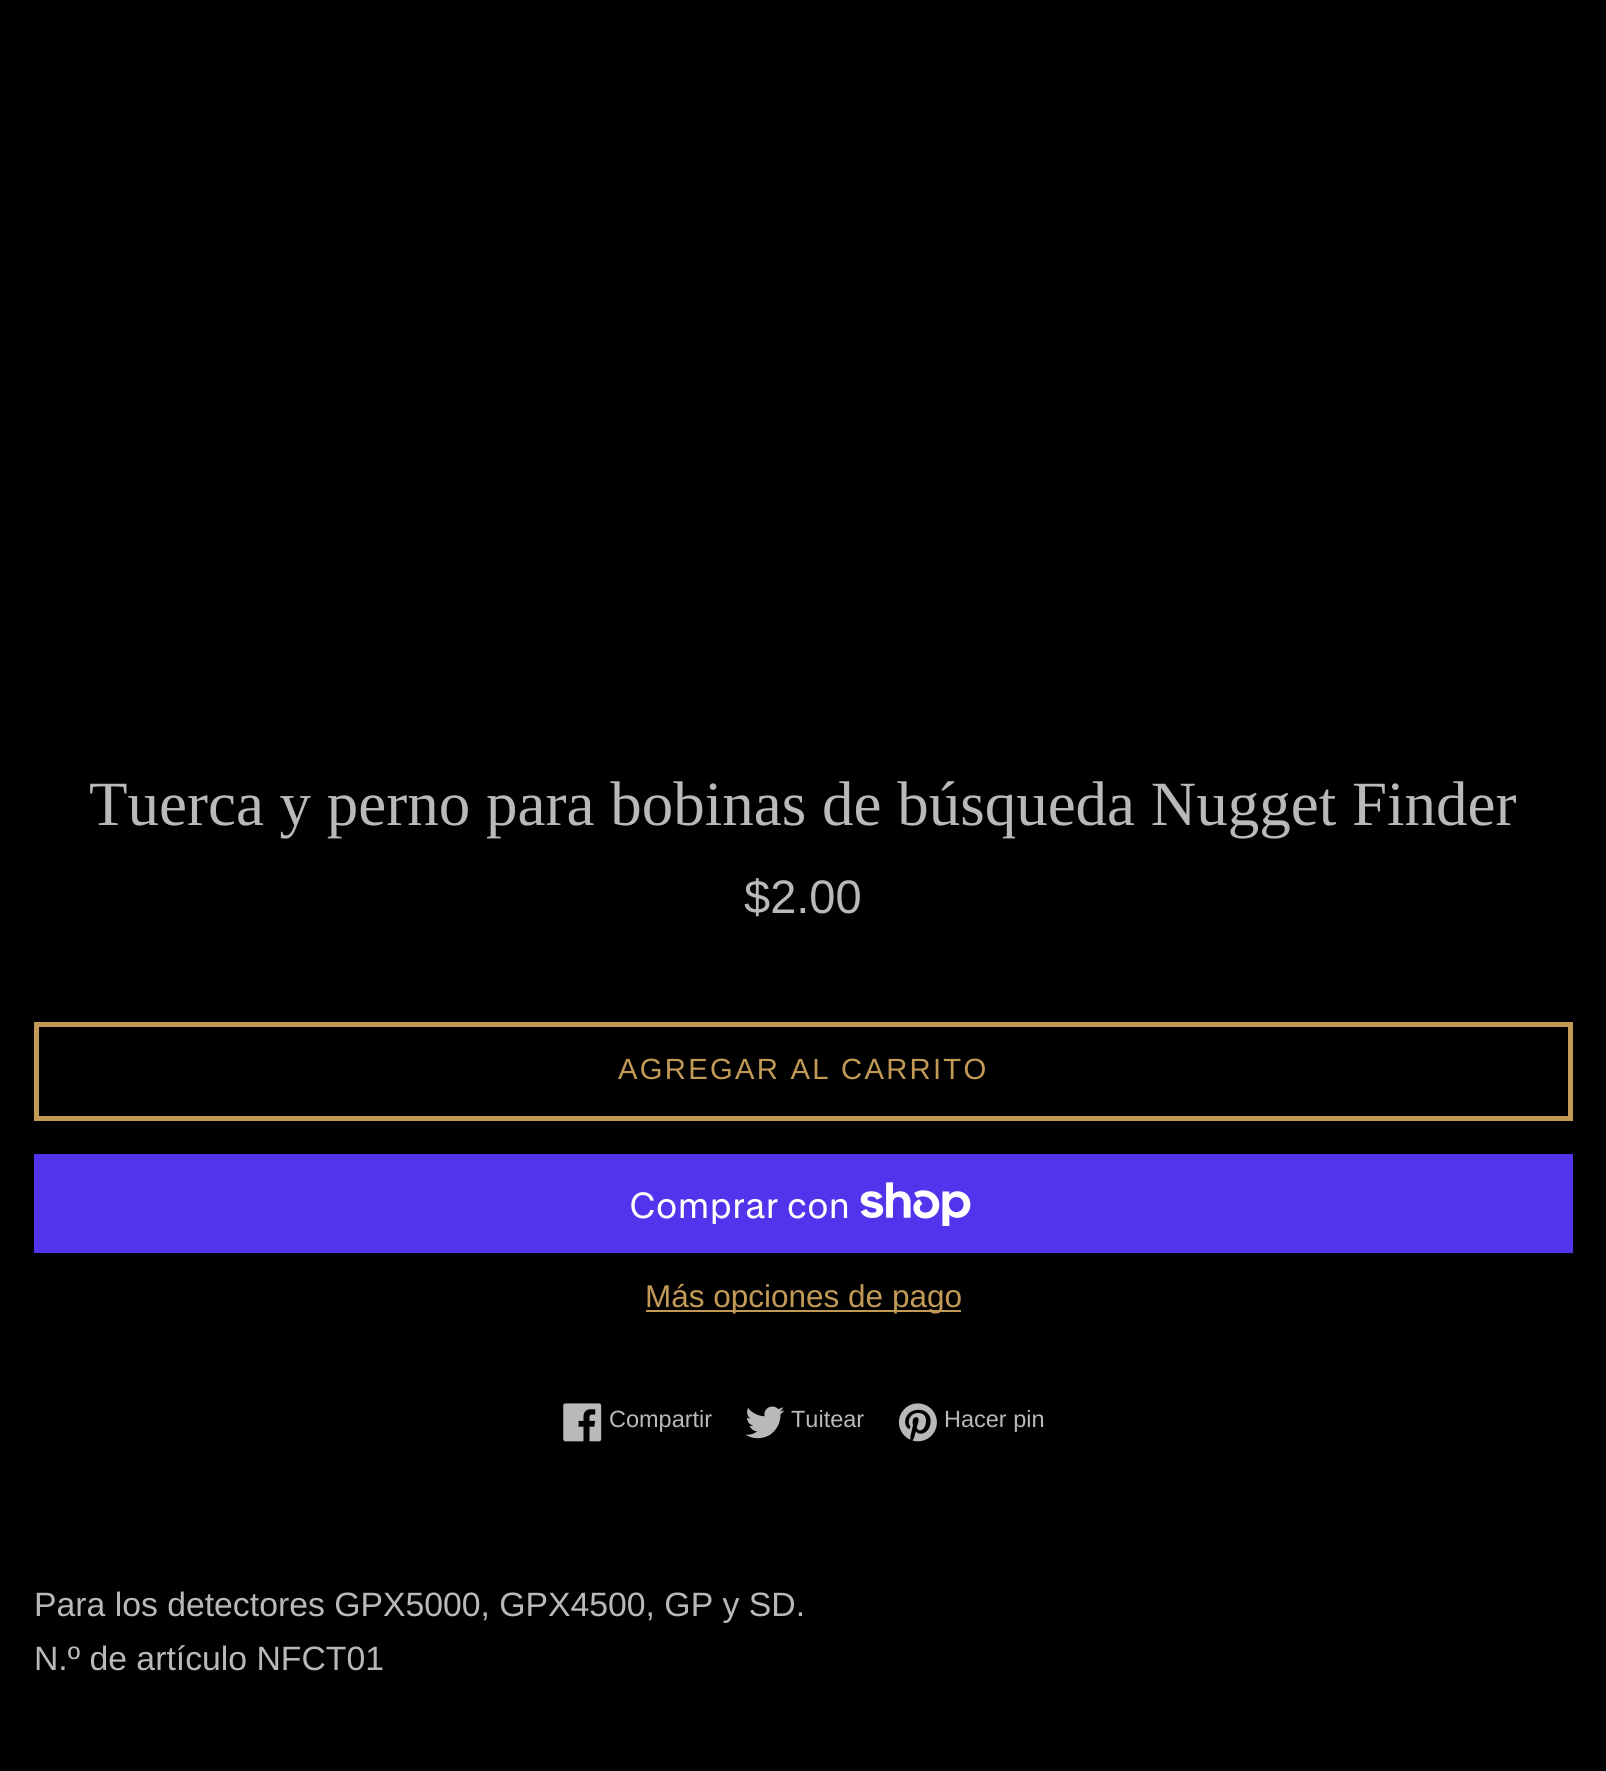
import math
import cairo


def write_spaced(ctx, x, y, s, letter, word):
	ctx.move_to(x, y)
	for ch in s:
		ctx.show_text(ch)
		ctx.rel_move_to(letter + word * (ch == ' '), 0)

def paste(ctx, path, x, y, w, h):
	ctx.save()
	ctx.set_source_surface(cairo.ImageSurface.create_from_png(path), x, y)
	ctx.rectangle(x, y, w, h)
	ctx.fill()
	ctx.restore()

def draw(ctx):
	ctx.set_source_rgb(0, 0, 0)
	ctx.paint()
	ctx.select_font_face('Liberation Serif')
	ctx.set_font_size(63)
	ctx.set_source_rgb(0.725, 0.725, 0.725)
	ctx.move_to(89, 825)
	ctx.show_text('Tuerca y perno para bobinas de búsqueda Nugget Finder')
	ctx.select_font_face('Liberation Sans')
	ctx.set_font_size(47)
	ctx.move_to(744, 913)
	ctx.show_text('$2.00')
	ctx.rectangle(36.5, 1024.5, 1534, 94)
	ctx.set_source_rgb(0.761, 0.604, 0.337)
	ctx.set_line_width(5)
	ctx.stroke()
	ctx.set_font_size(29.25)
	write_spaced(ctx, 618, 1079, 'AGREGAR AL CARRITO', 2.25, 0)
	ctx.set_source_rgb(0.329, 0.2, 0.922)
	ctx.rectangle(34, 1154, 1539, 99)
	ctx.fill()
	ctx.select_font_face('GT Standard')
	ctx.set_font_size(36)
	ctx.set_source_rgb(1, 1, 1)
	ctx.move_to(629, 1218)
	ctx.show_text('Comprar con')
	paste(ctx, 'media/1.png', 860, 1182, 111, 44)
	ctx.set_source_rgb(0.761, 0.604, 0.337)
	ctx.rectangle(646, 1310, 315, 2)
	ctx.fill()
	ctx.select_font_face('Liberation Sans')
	ctx.set_font_size(31.5)
	ctx.move_to(645, 1307)
	ctx.show_text('Más opciones de pago')
	paste(ctx, 'media/2.png', 563, 1403, 39, 39)
	ctx.set_font_size(23.5)
	ctx.set_source_rgb(0.725, 0.725, 0.725)
	ctx.move_to(609, 1427)
	ctx.show_text('Compartir')
	paste(ctx, 'media/3.png', 745, 1406, 40, 33)
	ctx.move_to(791, 1427)
	ctx.show_text('Tuitear')
	paste(ctx, 'media/4.png', 898, 1403, 39, 39)
	ctx.move_to(944, 1427)
	ctx.show_text('Hacer pin')
	ctx.set_font_size(33.75)
	ctx.move_to(34, 1616)
	ctx.show_text('Para los detectores GPX5000, GPX4500, GP y SD.')
	ctx.move_to(34, 1670)
	ctx.show_text('N.º de artículo NFCT01')


surface = cairo.ImageSurface(cairo.FORMAT_RGB24, 1606, 1771)
ctx = cairo.Context(surface)
options = cairo.FontOptions()
options.set_hint_metrics(cairo.HINT_METRICS_OFF)
options.set_hint_style(cairo.HINT_STYLE_NONE)
ctx.set_font_options(options)
ctx.set_miter_limit(4)
draw(ctx)
surface.write_to_png('image.png')
